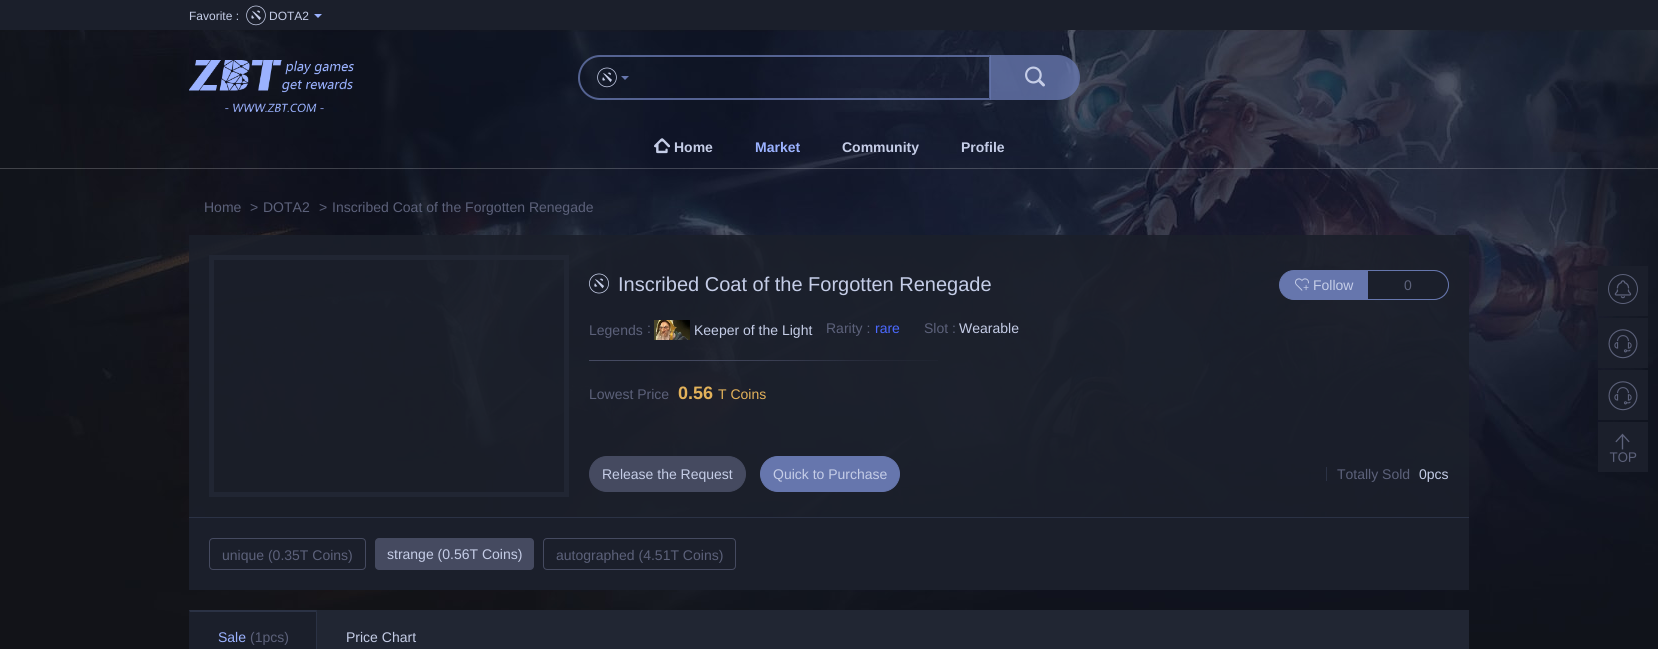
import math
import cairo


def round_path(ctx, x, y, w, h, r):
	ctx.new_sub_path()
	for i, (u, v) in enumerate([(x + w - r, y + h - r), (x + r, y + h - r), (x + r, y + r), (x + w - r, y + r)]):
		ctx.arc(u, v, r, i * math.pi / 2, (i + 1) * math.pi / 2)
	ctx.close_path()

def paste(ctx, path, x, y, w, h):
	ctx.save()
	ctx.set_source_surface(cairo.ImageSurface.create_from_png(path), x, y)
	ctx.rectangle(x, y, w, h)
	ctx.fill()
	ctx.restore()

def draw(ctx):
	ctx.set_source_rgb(1, 1, 1)
	ctx.paint()
	paste(ctx, 'media/1.png', 0, 30, 1658, 619)
	ctx.set_source_rgb(0.106, 0.122, 0.169)
	ctx.rectangle(0, 0, 1658, 30)
	ctx.fill()
	ctx.select_font_face('Liberation Sans')
	ctx.set_font_size(12)
	ctx.set_source_rgb(0.773, 0.804, 0.906)
	ctx.move_to(189, 20)
	ctx.show_text('Favorite :')
	paste(ctx, 'media/2.png', 246, 5, 20, 21)
	ctx.move_to(269, 20)
	ctx.show_text('DOTA2')
	ctx.set_source_rgb(0.608, 0.698, 1)
	ctx.new_path()
	ctx.move_to(314, 14)
	ctx.line_to(322, 14)
	ctx.line_to(318, 18)
	ctx.close_path()
	ctx.fill()
	paste(ctx, 'media/3.png', 189, 60, 165, 52)
	ctx.set_source_rgba(0.4, 0.463, 0.678, 0.8)
	ctx.set_fill_rule(cairo.FILL_RULE_EVEN_ODD)
	ctx.new_path()
	ctx.move_to(600, 55)
	ctx.line_to(646, 55)
	ctx.line_to(646, 100)
	ctx.line_to(600, 100)
	ctx.curve_to(588, 100, 578, 90, 578, 78)
	ctx.curve_to(578, 65, 588, 55, 600, 55)
	ctx.close_path()
	ctx.move_to(600, 57)
	ctx.line_to(646, 57)
	ctx.line_to(646, 98)
	ctx.line_to(600, 98)
	ctx.curve_to(589, 98, 580, 89, 580, 78)
	ctx.curve_to(580, 66, 589, 57, 600, 57)
	ctx.close_path()
	ctx.fill()
	paste(ctx, 'media/4.png', 597, 67, 20, 21)
	ctx.set_source_rgb(0.4, 0.463, 0.678)
	ctx.set_fill_rule(cairo.FILL_RULE_WINDING)
	ctx.new_path()
	ctx.move_to(621, 76)
	ctx.line_to(629, 76)
	ctx.line_to(625, 80)
	ctx.close_path()
	ctx.fill()
	ctx.set_source_rgba(0, 0, 0, 0.07)
	ctx.rectangle(646, 57, 343, 1)
	ctx.fill()
	ctx.set_source_rgba(0.4, 0.463, 0.678, 0.8)
	ctx.new_path()
	ctx.move_to(646, 55)
	ctx.line_to(991, 55)
	ctx.line_to(989, 57)
	ctx.line_to(646, 57)
	ctx.close_path()
	ctx.fill()
	ctx.new_path()
	ctx.move_to(991, 55)
	ctx.line_to(991, 100)
	ctx.line_to(989, 98)
	ctx.line_to(989, 57)
	ctx.close_path()
	ctx.fill()
	ctx.new_path()
	ctx.move_to(991, 100)
	ctx.line_to(646, 100)
	ctx.line_to(646, 98)
	ctx.line_to(989, 98)
	ctx.close_path()
	ctx.fill()
	ctx.new_path()
	ctx.move_to(990, 55)
	ctx.line_to(1057.5, 55)
	ctx.curve_to(1070, 55, 1080, 65, 1080, 77.5)
	ctx.curve_to(1080, 90, 1070, 100, 1057.5, 100)
	ctx.line_to(990, 100)
	ctx.close_path()
	ctx.fill()
	paste(ctx, 'media/5.png', 1025, 66, 20, 21)
	paste(ctx, 'media/6.png', 654, 138, 16, 16)
	ctx.select_font_face('Liberation Sans', cairo.FONT_SLANT_NORMAL, cairo.FONT_WEIGHT_BOLD)
	ctx.set_font_size(14)
	ctx.set_source_rgb(0.773, 0.804, 0.906)
	ctx.move_to(674, 152)
	ctx.show_text('Home')
	ctx.set_source_rgb(0.608, 0.698, 1)
	ctx.move_to(755, 152)
	ctx.show_text('Market')
	ctx.set_source_rgb(0.773, 0.804, 0.906)
	ctx.move_to(842, 152)
	ctx.show_text('Community')
	ctx.move_to(961, 152)
	ctx.show_text('Profile')
	ctx.set_source_rgba(1, 1, 1, 0.2)
	ctx.rectangle(0, 168, 1658, 1)
	ctx.fill()
	ctx.select_font_face('Liberation Sans')
	ctx.set_source_rgb(0.361, 0.38, 0.478)
	for x, y, s in [
		(204, 212, 'Home'),
		(250, 212, '>'),
		(263, 212, 'DOTA2'),
		(319, 212, '>'),
		(332, 212, 'Inscribed Coat of the Forgotten Renegade'),
	]:
		ctx.move_to(x, y)
		ctx.show_text(s)
	ctx.set_source_rgba(0.106, 0.122, 0.169, 0.9)
	ctx.rectangle(189, 235, 1280, 282)
	ctx.fill()
	ctx.rectangle(211.5, 257.5, 355, 237)
	ctx.set_source_rgb(0.129, 0.149, 0.2)
	ctx.set_line_width(5)
	ctx.stroke()
	paste(ctx, 'media/7.png', 589, 273, 20, 21)
	ctx.set_font_size(20)
	ctx.set_source_rgb(0.773, 0.804, 0.906)
	ctx.move_to(618, 291)
	ctx.show_text('Inscribed Coat of the Forgotten Renegade')
	ctx.set_font_size(14)
	ctx.set_source_rgb(0.361, 0.38, 0.478)
	ctx.move_to(589, 335)
	ctx.show_text('Legends')
	ctx.move_to(647, 333)
	ctx.show_text(':')
	paste(ctx, 'media/8.png', 654, 320, 36, 20)
	ctx.set_source_rgb(0.773, 0.804, 0.906)
	ctx.move_to(694, 335)
	ctx.show_text('Keeper of the Light')
	ctx.set_source_rgb(0.361, 0.38, 0.478)
	ctx.move_to(826, 333)
	ctx.show_text('Rarity :')
	ctx.set_source_rgb(0.294, 0.412, 1)
	ctx.move_to(875, 333)
	ctx.show_text('rare')
	ctx.set_source_rgb(0.361, 0.38, 0.478)
	ctx.move_to(924, 333)
	ctx.show_text('Slot :')
	ctx.set_source_rgb(0.773, 0.804, 0.906)
	ctx.move_to(959, 333)
	ctx.show_text('Wearable')
	ctx.set_source_rgb(0.4, 0.463, 0.678)
	round_path(ctx, 1279.5, 270.5, 169, 29, 14.5)
	ctx.fill_preserve()
	ctx.set_line_width(1)
	ctx.stroke()
	paste(ctx, 'media/9.png', 1295, 278, 14, 13)
	ctx.set_source_rgb(0.773, 0.804, 0.906)
	ctx.move_to(1313, 290)
	ctx.show_text('Follow')
	ctx.set_source_rgb(0.106, 0.122, 0.169)
	ctx.new_path()
	ctx.move_to(1368, 271)
	ctx.line_to(1434, 271)
	ctx.curve_to(1441.5, 271, 1448, 277.5, 1448, 285)
	ctx.curve_to(1448, 292.5, 1441.5, 299, 1434, 299)
	ctx.line_to(1368, 299)
	ctx.close_path()
	ctx.fill()
	ctx.set_source_rgb(0.361, 0.38, 0.478)
	ctx.move_to(1404, 290)
	ctx.show_text('0')
	paste(ctx, 'media/10.png', 589, 360, 349, 1)
	ctx.move_to(589, 399)
	ctx.show_text('Lowest Price')
	ctx.select_font_face('Liberation Sans', cairo.FONT_SLANT_NORMAL, cairo.FONT_WEIGHT_BOLD)
	ctx.set_font_size(18)
	ctx.set_source_rgb(0.89, 0.698, 0.353)
	ctx.move_to(678, 399)
	ctx.show_text('0.56')
	ctx.select_font_face('Liberation Sans')
	ctx.set_font_size(14)
	ctx.move_to(718, 399)
	ctx.show_text('T Coins')
	ctx.set_source_rgb(0.271, 0.29, 0.376)
	round_path(ctx, 589.5, 456.5, 156, 35, 17.5)
	ctx.fill_preserve()
	ctx.stroke()
	ctx.set_source_rgb(0.773, 0.804, 0.906)
	ctx.move_to(602, 479)
	ctx.show_text('Release the Request')
	ctx.set_source_rgb(0.4, 0.463, 0.678)
	round_path(ctx, 760.5, 456.5, 139, 35, 17.5)
	ctx.fill_preserve()
	ctx.stroke()
	ctx.set_source_rgb(0.773, 0.804, 0.906)
	ctx.move_to(773, 479)
	ctx.show_text('Quick to Purchase')
	ctx.set_source_rgb(0.169, 0.196, 0.271)
	ctx.rectangle(1326, 467, 1, 14)
	ctx.fill()
	ctx.set_source_rgb(0.361, 0.38, 0.478)
	ctx.move_to(1337, 479)
	ctx.show_text('Totally Sold')
	ctx.set_source_rgb(0.773, 0.804, 0.906)
	ctx.move_to(1419, 479)
	ctx.show_text('0pcs')
	ctx.set_source_rgb(0.106, 0.122, 0.169)
	ctx.rectangle(189, 518, 1280, 72)
	ctx.fill()
	ctx.set_source_rgb(0.169, 0.196, 0.271)
	ctx.rectangle(189, 517, 1280, 1)
	ctx.fill()
	round_path(ctx, 209.5, 538.5, 156, 31, 3.5)
	ctx.set_source_rgb(0.271, 0.29, 0.376)
	ctx.stroke()
	ctx.set_source_rgb(0.361, 0.38, 0.478)
	ctx.move_to(222, 560)
	ctx.show_text('unique (0.35T Coins)')
	ctx.set_source_rgb(0.271, 0.29, 0.376)
	round_path(ctx, 375, 538, 159, 32, 4)
	ctx.fill()
	ctx.set_source_rgb(0.773, 0.804, 0.906)
	ctx.move_to(387, 559)
	ctx.show_text('strange (0.56T Coins)')
	round_path(ctx, 543.5, 538.5, 192, 31, 3.5)
	ctx.set_source_rgb(0.271, 0.29, 0.376)
	ctx.stroke()
	ctx.set_source_rgb(0.361, 0.38, 0.478)
	ctx.move_to(556, 560)
	ctx.show_text('autographed (4.51T Coins)')
	ctx.set_source_rgb(0.129, 0.149, 0.2)
	ctx.rectangle(317, 610, 1152, 39)
	ctx.fill()
	ctx.set_source_rgb(0.106, 0.122, 0.169)
	ctx.rectangle(189, 610, 128, 39)
	ctx.fill()
	ctx.set_source_rgb(0.169, 0.196, 0.271)
	ctx.new_path()
	ctx.move_to(189, 610)
	ctx.line_to(317, 610)
	ctx.line_to(316, 612)
	ctx.line_to(190, 612)
	ctx.close_path()
	ctx.fill()
	ctx.new_path()
	ctx.move_to(317, 610)
	ctx.line_to(317, 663)
	ctx.line_to(316, 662)
	ctx.line_to(316, 612)
	ctx.close_path()
	ctx.fill()
	ctx.set_source_rgb(0.608, 0.698, 1)
	ctx.move_to(218, 642)
	ctx.show_text('Sale')
	ctx.set_source_rgb(0.361, 0.38, 0.478)
	ctx.move_to(250, 642)
	ctx.show_text('(1pcs)')
	ctx.set_source_rgb(0.773, 0.804, 0.906)
	ctx.move_to(346, 642)
	ctx.show_text('Price Chart')
	ctx.set_source_rgb(0.106, 0.122, 0.169)
	ctx.rectangle(1598, 266, 50, 50)
	ctx.fill()
	ctx.arc(1623, 289, 14.5, 0, 2 * math.pi)
	ctx.set_source_rgb(0.361, 0.38, 0.478)
	ctx.stroke()
	paste(ctx, 'media/11.png', 1614, 280, 18, 19)
	ctx.set_source_rgb(0.106, 0.122, 0.169)
	ctx.rectangle(1598, 318, 50, 50)
	ctx.fill()
	paste(ctx, 'media/12.png', 1608, 329, 30, 30)
	ctx.rectangle(1598, 370, 50, 50)
	ctx.fill()
	paste(ctx, 'media/12.png', 1608, 381, 30, 30)
	ctx.rectangle(1598, 422, 50, 50)
	ctx.fill()
	paste(ctx, 'media/13.png', 1609, 433, 28, 29)


surface = cairo.ImageSurface(cairo.FORMAT_RGB24, 1658, 649)
ctx = cairo.Context(surface)
options = cairo.FontOptions()
options.set_hint_metrics(cairo.HINT_METRICS_OFF)
options.set_hint_style(cairo.HINT_STYLE_NONE)
ctx.set_font_options(options)
ctx.set_miter_limit(4)
draw(ctx)
surface.write_to_png('image.png')
